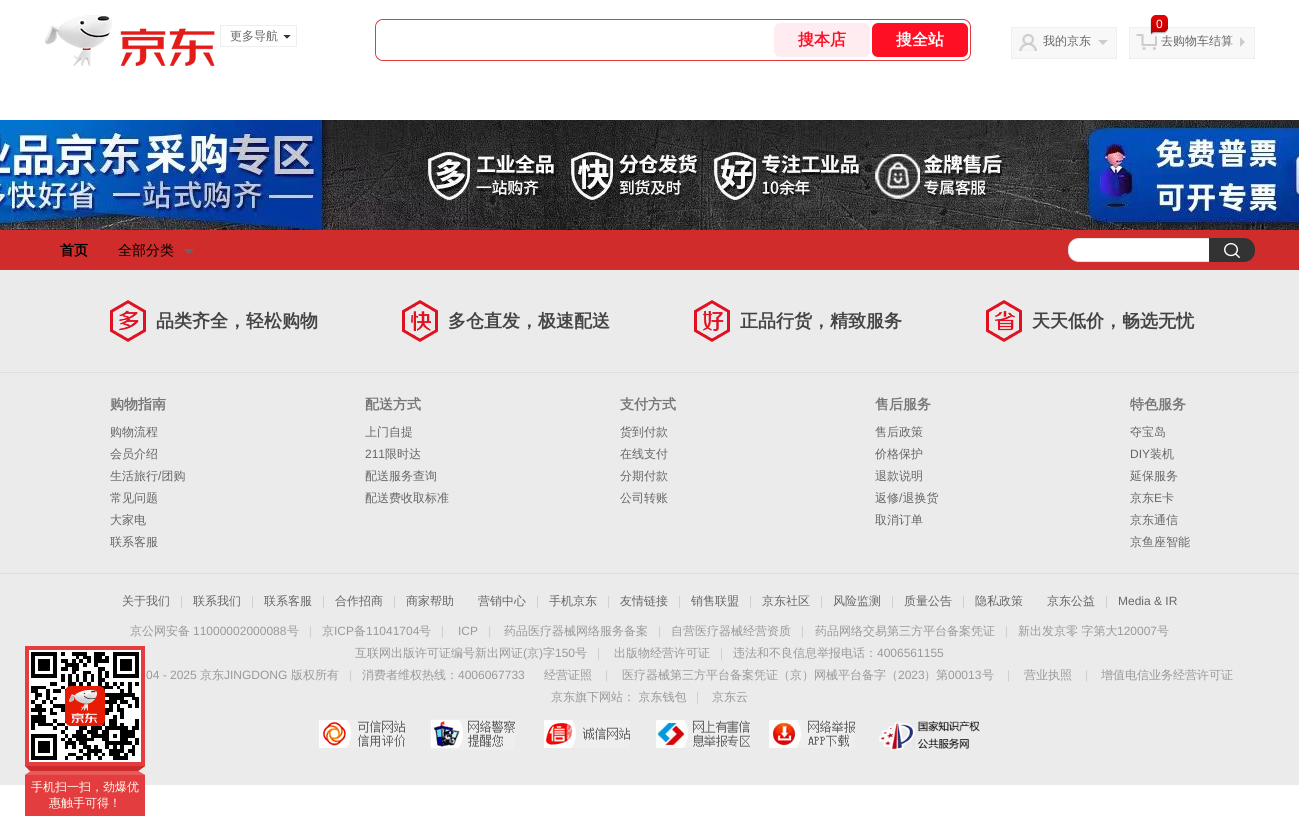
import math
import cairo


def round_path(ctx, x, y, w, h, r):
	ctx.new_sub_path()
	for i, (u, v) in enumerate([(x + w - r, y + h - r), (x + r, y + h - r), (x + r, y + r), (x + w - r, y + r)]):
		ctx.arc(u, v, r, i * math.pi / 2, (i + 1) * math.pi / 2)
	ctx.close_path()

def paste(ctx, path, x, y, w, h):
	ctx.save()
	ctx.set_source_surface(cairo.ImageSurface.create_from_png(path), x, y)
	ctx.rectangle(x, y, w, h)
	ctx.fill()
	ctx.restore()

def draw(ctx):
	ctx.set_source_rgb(1, 1, 1)
	ctx.paint()
	paste(ctx, 'media/1.png', 45, 15, 170, 51)
	ctx.rectangle(220.5, 25.5, 76, 21)
	ctx.set_source_rgb(0.933, 0.933, 0.933)
	ctx.set_line_width(1)
	ctx.stroke()
	ctx.select_font_face('WenQuanYi Zen Hei Medium')
	ctx.set_font_size(12)
	ctx.set_source_rgb(0.4, 0.4, 0.4)
	ctx.move_to(230, 40)
	ctx.show_text('更多导航')
	ctx.set_source_rgb(0.2, 0.2, 0.2)
	ctx.new_path()
	ctx.move_to(283, 35)
	ctx.line_to(291, 35)
	ctx.line_to(287, 39)
	ctx.close_path()
	ctx.fill()
	ctx.set_source_rgb(1, 1, 1)
	ctx.new_path()
	ctx.move_to(291, 35)
	ctx.line_to(291, 43)
	ctx.line_to(287, 39)
	ctx.close_path()
	ctx.move_to(283, 43)
	ctx.line_to(283, 35)
	ctx.line_to(287, 39)
	ctx.close_path()
	ctx.fill()
	round_path(ctx, 375.5, 19.5, 595, 41, 7.5)
	ctx.set_source_rgb(0.894, 0.224, 0.235)
	ctx.stroke()
	ctx.set_source_rgb(1, 1, 1)
	ctx.new_path()
	ctx.move_to(384, 20)
	ctx.line_to(776, 20)
	ctx.line_to(776, 60)
	ctx.line_to(384, 60)
	ctx.curve_to(379.5, 60, 376, 56.5, 376, 52)
	ctx.line_to(376, 28)
	ctx.curve_to(376, 23.5, 379.5, 20, 384, 20)
	ctx.close_path()
	ctx.fill()
	ctx.set_source_rgb(1, 0.922, 0.945)
	round_path(ctx, 774, 23, 96, 34, 6)
	ctx.fill()
	ctx.select_font_face('WenQuanYi Zen Hei', cairo.FONT_SLANT_NORMAL, cairo.FONT_WEIGHT_BOLD)
	ctx.set_font_size(16)
	ctx.set_source_rgb(1, 0.059, 0.137)
	ctx.move_to(798, 45)
	ctx.show_text('搜本店')
	round_path(ctx, 872, 23, 96, 34, 6)
	ctx.fill()
	ctx.set_source_rgb(1, 1, 1)
	ctx.move_to(896, 45)
	ctx.show_text('搜全站')
	ctx.set_source_rgb(0.969, 0.969, 0.969)
	ctx.rectangle(1012, 28, 104, 30)
	ctx.fill()
	paste(ctx, 'media/2.png', 1012, 34, 25, 20)
	ctx.rectangle(1011.5, 27.5, 105, 31)
	ctx.set_source_rgb(0.937, 0.937, 0.937)
	ctx.stroke()
	ctx.select_font_face('WenQuanYi Zen Hei Medium')
	ctx.set_font_size(12)
	ctx.set_source_rgb(0.4, 0.4, 0.4)
	ctx.move_to(1043, 45)
	ctx.show_text('我的京东')
	ctx.set_source_rgb(0.8, 0.8, 0.8)
	ctx.new_path()
	ctx.move_to(1098, 40)
	ctx.line_to(1108, 40)
	ctx.line_to(1103, 45)
	ctx.close_path()
	ctx.fill()
	ctx.set_source_rgb(0.969, 0.969, 0.969)
	ctx.rectangle(1130, 28, 124, 30)
	ctx.fill()
	paste(ctx, 'media/3.png', 1136, 34, 21, 16)
	ctx.rectangle(1129.5, 27.5, 125, 31)
	ctx.set_source_rgb(0.937, 0.937, 0.937)
	ctx.stroke()
	ctx.set_source_rgb(0.4, 0.4, 0.4)
	ctx.move_to(1161, 45)
	ctx.show_text('去购物车结算')
	paste(ctx, 'media/4.png', 1150, 15, 18, 20)
	paste(ctx, 'media/5.png', 1158, 15, 10, 19)
	ctx.select_font_face('Liberation Sans')
	ctx.set_source_rgb(1, 1, 1)
	ctx.move_to(1156, 28)
	ctx.show_text('0')
	ctx.set_source_rgb(0.8, 0.8, 0.8)
	ctx.new_path()
	ctx.move_to(1240, 47)
	ctx.line_to(1240, 37)
	ctx.line_to(1245, 42)
	ctx.close_path()
	ctx.fill()
	paste(ctx, 'media/6.png', 0, 120, 1299, 110)
	ctx.set_source_rgb(0.816, 0.173, 0.173)
	ctx.rectangle(0, 230, 1299, 40)
	ctx.fill()
	ctx.select_font_face('WenQuanYi Zen Hei', cairo.FONT_SLANT_NORMAL, cairo.FONT_WEIGHT_BOLD)
	ctx.set_font_size(14)
	ctx.set_source_rgb(0, 0, 0)
	ctx.move_to(60, 255)
	ctx.show_text('首页')
	ctx.select_font_face('WenQuanYi Zen Hei Medium')
	ctx.move_to(118, 255)
	ctx.show_text('全部分类')
	ctx.set_source_rgb(0.4, 0.4, 0.4)
	ctx.new_path()
	ctx.move_to(184, 249)
	ctx.line_to(194, 249)
	ctx.line_to(189, 254)
	ctx.close_path()
	ctx.fill()
	ctx.set_source_rgb(1, 1, 1)
	ctx.new_path()
	ctx.move_to(1079, 238.5)
	ctx.line_to(1209.5, 238.5)
	ctx.line_to(1209.5, 261.5)
	ctx.line_to(1079, 261.5)
	ctx.curve_to(1073, 261.5, 1068.5, 257, 1068.5, 251)
	ctx.line_to(1068.5, 249)
	ctx.curve_to(1068.5, 243, 1073, 238.5, 1079, 238.5)
	ctx.close_path()
	ctx.fill_preserve()
	ctx.set_source_rgb(0.882, 0.882, 0.882)
	ctx.stroke()
	ctx.set_source_rgb(0.2, 0.2, 0.2)
	ctx.new_path()
	ctx.move_to(1209, 238)
	ctx.line_to(1244, 238)
	ctx.curve_to(1250, 238, 1255, 243, 1255, 249)
	ctx.line_to(1255, 251)
	ctx.curve_to(1255, 257, 1250, 262, 1244, 262)
	ctx.line_to(1209, 262)
	ctx.close_path()
	ctx.fill()
	paste(ctx, 'media/7.png', 1224, 243, 16, 15)
	ctx.set_source_rgb(0.918, 0.918, 0.918)
	ctx.rectangle(0, 270, 1299, 515)
	ctx.fill()
	paste(ctx, 'media/8.png', 110, 300, 36, 42)
	ctx.select_font_face('WenQuanYi Zen Hei', cairo.FONT_SLANT_NORMAL, cairo.FONT_WEIGHT_BOLD)
	ctx.set_font_size(18)
	ctx.set_source_rgb(0.267, 0.267, 0.267)
	ctx.move_to(156, 327)
	ctx.show_text('品类齐全，轻松购物')
	paste(ctx, 'media/9.png', 402, 300, 36, 42)
	ctx.move_to(448, 327)
	ctx.show_text('多仓直发，极速配送')
	paste(ctx, 'media/10.png', 694, 300, 36, 42)
	ctx.move_to(740, 327)
	ctx.show_text('正品行货，精致服务')
	paste(ctx, 'media/11.png', 986, 300, 36, 42)
	ctx.move_to(1032, 327)
	ctx.show_text('天天低价，畅选无忧')
	ctx.set_source_rgb(0.871, 0.871, 0.871)
	ctx.rectangle(0, 372, 1299, 1)
	ctx.fill()
	ctx.rectangle(0, 573, 1299, 1)
	ctx.fill()
	ctx.set_font_size(14)
	ctx.set_source_rgb(0.467, 0.467, 0.467)
	ctx.move_to(110, 409)
	ctx.show_text('购物指南')
	ctx.select_font_face('WenQuanYi Zen Hei Medium')
	ctx.set_font_size(12)
	ctx.set_source_rgb(0.4, 0.4, 0.4)
	for x, y, s in [
		(110, 436, '购物流程'),
		(110, 458, '会员介绍'),
		(110, 480, '生活旅行 团购'),
	]:
		ctx.move_to(x, y)
		ctx.show_text(s)
	ctx.select_font_face('Liberation Sans')
	ctx.move_to(158, 480)
	ctx.show_text('/')
	ctx.select_font_face('WenQuanYi Zen Hei Medium')
	ctx.move_to(110, 502)
	ctx.show_text('常见问题')
	ctx.move_to(110, 524)
	ctx.show_text('大家电')
	ctx.save()
	ctx.rectangle(110, 531, 255, 22)
	ctx.clip()
	ctx.move_to(110, 546)
	ctx.show_text('联系客服')
	ctx.restore()
	ctx.select_font_face('WenQuanYi Zen Hei', cairo.FONT_SLANT_NORMAL, cairo.FONT_WEIGHT_BOLD)
	ctx.set_font_size(14)
	ctx.set_source_rgb(0.467, 0.467, 0.467)
	ctx.move_to(365, 409)
	ctx.show_text('配送方式')
	ctx.select_font_face('WenQuanYi Zen Hei Medium')
	ctx.set_font_size(12)
	ctx.set_source_rgb(0.4, 0.4, 0.4)
	ctx.move_to(365, 436)
	ctx.show_text('上门自提')
	ctx.select_font_face('Liberation Sans')
	ctx.move_to(365, 458)
	ctx.show_text('211')
	ctx.select_font_face('WenQuanYi Zen Hei Medium')
	for x, y, s in [
		(385, 458, '限时达'),
		(365, 480, '配送服务查询'),
		(365, 502, '配送费收取标准'),
	]:
		ctx.move_to(x, y)
		ctx.show_text(s)
	ctx.select_font_face('WenQuanYi Zen Hei', cairo.FONT_SLANT_NORMAL, cairo.FONT_WEIGHT_BOLD)
	ctx.set_font_size(14)
	ctx.set_source_rgb(0.467, 0.467, 0.467)
	ctx.move_to(620, 409)
	ctx.show_text('支付方式')
	ctx.select_font_face('WenQuanYi Zen Hei Medium')
	ctx.set_font_size(12)
	ctx.set_source_rgb(0.4, 0.4, 0.4)
	for x, y, s in [
		(620, 436, '货到付款'),
		(620, 458, '在线支付'),
		(620, 480, '分期付款'),
		(620, 502, '公司转账'),
	]:
		ctx.move_to(x, y)
		ctx.show_text(s)
	ctx.select_font_face('WenQuanYi Zen Hei', cairo.FONT_SLANT_NORMAL, cairo.FONT_WEIGHT_BOLD)
	ctx.set_font_size(14)
	ctx.set_source_rgb(0.467, 0.467, 0.467)
	ctx.move_to(875, 409)
	ctx.show_text('售后服务')
	ctx.select_font_face('WenQuanYi Zen Hei Medium')
	ctx.set_font_size(12)
	ctx.set_source_rgb(0.4, 0.4, 0.4)
	for x, y, s in [
		(875, 436, '售后政策'),
		(875, 458, '价格保护'),
		(875, 480, '退款说明'),
		(875, 502, '返修 退换货'),
	]:
		ctx.move_to(x, y)
		ctx.show_text(s)
	ctx.select_font_face('Liberation Sans')
	ctx.move_to(899, 502)
	ctx.show_text('/')
	ctx.select_font_face('WenQuanYi Zen Hei Medium')
	ctx.move_to(875, 524)
	ctx.show_text('取消订单')
	ctx.select_font_face('WenQuanYi Zen Hei', cairo.FONT_SLANT_NORMAL, cairo.FONT_WEIGHT_BOLD)
	ctx.set_font_size(14)
	ctx.set_source_rgb(0.467, 0.467, 0.467)
	ctx.move_to(1130, 409)
	ctx.show_text('特色服务')
	ctx.select_font_face('WenQuanYi Zen Hei Medium')
	ctx.set_font_size(12)
	ctx.set_source_rgb(0.4, 0.4, 0.4)
	ctx.move_to(1130, 436)
	ctx.show_text('夺宝岛')
	ctx.select_font_face('Liberation Sans')
	ctx.move_to(1130, 458)
	ctx.show_text('DIY')
	ctx.select_font_face('WenQuanYi Zen Hei Medium')
	for x, y, s in [
		(1150, 458, '装机'),
		(1130, 480, '延保服务'),
		(1130, 502, '京东'),
	]:
		ctx.move_to(x, y)
		ctx.show_text(s)
	ctx.select_font_face('Liberation Sans')
	ctx.move_to(1154, 502)
	ctx.show_text('E')
	ctx.select_font_face('WenQuanYi Zen Hei Medium')
	for x, y, s in [
		(1162, 502, '卡'),
		(1130, 524, '京东通信'),
		(1130, 546, '京鱼座智能'),
		(122, 605, '关于我们'),
	]:
		ctx.move_to(x, y)
		ctx.show_text(s)
	ctx.select_font_face('Liberation Sans')
	ctx.set_source_rgb(0.8, 0.8, 0.8)
	ctx.move_to(180, 605)
	ctx.show_text('|')
	ctx.select_font_face('WenQuanYi Zen Hei Medium')
	ctx.set_source_rgb(0.4, 0.4, 0.4)
	ctx.move_to(193, 605)
	ctx.show_text('联系我们')
	ctx.select_font_face('Liberation Sans')
	ctx.set_source_rgb(0.8, 0.8, 0.8)
	ctx.move_to(251, 605)
	ctx.show_text('|')
	ctx.select_font_face('WenQuanYi Zen Hei Medium')
	ctx.set_source_rgb(0.4, 0.4, 0.4)
	ctx.move_to(264, 605)
	ctx.show_text('联系客服')
	ctx.select_font_face('Liberation Sans')
	ctx.set_source_rgb(0.8, 0.8, 0.8)
	ctx.move_to(322, 605)
	ctx.show_text('|')
	ctx.select_font_face('WenQuanYi Zen Hei Medium')
	ctx.set_source_rgb(0.4, 0.4, 0.4)
	ctx.move_to(335, 605)
	ctx.show_text('合作招商')
	ctx.select_font_face('Liberation Sans')
	ctx.set_source_rgb(0.8, 0.8, 0.8)
	ctx.move_to(393, 605)
	ctx.show_text('|')
	ctx.select_font_face('WenQuanYi Zen Hei Medium')
	ctx.set_source_rgb(0.4, 0.4, 0.4)
	ctx.move_to(406, 605)
	ctx.show_text('商家帮助')
	ctx.move_to(478, 605)
	ctx.show_text('营销中心')
	ctx.select_font_face('Liberation Sans')
	ctx.set_source_rgb(0.8, 0.8, 0.8)
	ctx.move_to(536, 605)
	ctx.show_text('|')
	ctx.select_font_face('WenQuanYi Zen Hei Medium')
	ctx.set_source_rgb(0.4, 0.4, 0.4)
	ctx.move_to(549, 605)
	ctx.show_text('手机京东')
	ctx.select_font_face('Liberation Sans')
	ctx.set_source_rgb(0.8, 0.8, 0.8)
	ctx.move_to(607, 605)
	ctx.show_text('|')
	ctx.select_font_face('WenQuanYi Zen Hei Medium')
	ctx.set_source_rgb(0.4, 0.4, 0.4)
	ctx.move_to(620, 605)
	ctx.show_text('友情链接')
	ctx.select_font_face('Liberation Sans')
	ctx.set_source_rgb(0.8, 0.8, 0.8)
	ctx.move_to(678, 605)
	ctx.show_text('|')
	ctx.select_font_face('WenQuanYi Zen Hei Medium')
	ctx.set_source_rgb(0.4, 0.4, 0.4)
	ctx.move_to(691, 605)
	ctx.show_text('销售联盟')
	ctx.select_font_face('Liberation Sans')
	ctx.set_source_rgb(0.8, 0.8, 0.8)
	ctx.move_to(749, 605)
	ctx.show_text('|')
	ctx.select_font_face('WenQuanYi Zen Hei Medium')
	ctx.set_source_rgb(0.4, 0.4, 0.4)
	ctx.move_to(762, 605)
	ctx.show_text('京东社区')
	ctx.select_font_face('Liberation Sans')
	ctx.set_source_rgb(0.8, 0.8, 0.8)
	ctx.move_to(820, 605)
	ctx.show_text('|')
	ctx.select_font_face('WenQuanYi Zen Hei Medium')
	ctx.set_source_rgb(0.4, 0.4, 0.4)
	ctx.move_to(833, 605)
	ctx.show_text('风险监测')
	ctx.select_font_face('Liberation Sans')
	ctx.set_source_rgb(0.8, 0.8, 0.8)
	ctx.move_to(891, 605)
	ctx.show_text('|')
	ctx.select_font_face('WenQuanYi Zen Hei Medium')
	ctx.set_source_rgb(0.4, 0.4, 0.4)
	ctx.move_to(904, 605)
	ctx.show_text('质量公告')
	ctx.select_font_face('Liberation Sans')
	ctx.set_source_rgb(0.8, 0.8, 0.8)
	ctx.move_to(962, 605)
	ctx.show_text('|')
	ctx.select_font_face('WenQuanYi Zen Hei Medium')
	ctx.set_source_rgb(0.4, 0.4, 0.4)
	ctx.move_to(975, 605)
	ctx.show_text('隐私政策')
	ctx.move_to(1047, 605)
	ctx.show_text('京东公益')
	ctx.select_font_face('Liberation Sans')
	ctx.set_source_rgb(0.8, 0.8, 0.8)
	ctx.move_to(1105, 605)
	ctx.show_text('|')
	ctx.set_source_rgb(0.4, 0.4, 0.4)
	ctx.move_to(1118, 605)
	ctx.show_text('Media & IR')
	ctx.select_font_face('WenQuanYi Zen Hei Medium')
	ctx.set_source_rgb(0.6, 0.6, 0.6)
	ctx.move_to(130, 635)
	ctx.show_text('京公网安备')
	ctx.select_font_face('Liberation Sans')
	ctx.move_to(193, 635)
	ctx.show_text('11000002000088')
	ctx.select_font_face('WenQuanYi Zen Hei Medium')
	ctx.move_to(287, 635)
	ctx.show_text('号')
	ctx.select_font_face('Liberation Sans')
	ctx.set_source_rgb(0.8, 0.8, 0.8)
	ctx.move_to(309, 635)
	ctx.show_text('|')
	ctx.select_font_face('WenQuanYi Zen Hei Medium')
	ctx.set_source_rgb(0.6, 0.6, 0.6)
	ctx.move_to(322, 635)
	ctx.show_text('京')
	ctx.select_font_face('Liberation Sans')
	ctx.move_to(334, 635)
	ctx.show_text('ICP')
	ctx.select_font_face('WenQuanYi Zen Hei Medium')
	ctx.move_to(354, 635)
	ctx.show_text('备')
	ctx.select_font_face('Liberation Sans')
	ctx.move_to(366, 635)
	ctx.show_text('11041704')
	ctx.select_font_face('WenQuanYi Zen Hei Medium')
	ctx.move_to(419, 635)
	ctx.show_text('号')
	ctx.select_font_face('Liberation Sans')
	ctx.set_source_rgb(0.8, 0.8, 0.8)
	ctx.move_to(441, 635)
	ctx.show_text('|')
	ctx.set_source_rgb(0.6, 0.6, 0.6)
	ctx.move_to(458, 635)
	ctx.show_text('ICP')
	ctx.set_source_rgb(0.8, 0.8, 0.8)
	ctx.move_to(488, 635)
	ctx.show_text('|')
	ctx.select_font_face('WenQuanYi Zen Hei Medium')
	ctx.set_source_rgb(0.6, 0.6, 0.6)
	ctx.move_to(504, 635)
	ctx.show_text('药品医疗器械网络服务备案')
	ctx.select_font_face('Liberation Sans')
	ctx.set_source_rgb(0.8, 0.8, 0.8)
	ctx.move_to(658, 635)
	ctx.show_text('|')
	ctx.select_font_face('WenQuanYi Zen Hei Medium')
	ctx.set_source_rgb(0.6, 0.6, 0.6)
	ctx.move_to(671, 635)
	ctx.show_text('自营医疗器械经营资质')
	ctx.select_font_face('Liberation Sans')
	ctx.set_source_rgb(0.8, 0.8, 0.8)
	ctx.move_to(801, 635)
	ctx.show_text('|')
	ctx.select_font_face('WenQuanYi Zen Hei Medium')
	ctx.set_source_rgb(0.6, 0.6, 0.6)
	ctx.move_to(815, 635)
	ctx.show_text('药品网络交易第三方平台备案凭证')
	ctx.select_font_face('Liberation Sans')
	ctx.set_source_rgb(0.8, 0.8, 0.8)
	ctx.move_to(1005, 635)
	ctx.show_text('|')
	ctx.select_font_face('WenQuanYi Zen Hei Medium')
	ctx.set_source_rgb(0.6, 0.6, 0.6)
	ctx.move_to(1018, 635)
	ctx.show_text('新出发京零 字第大')
	ctx.select_font_face('Liberation Sans')
	ctx.move_to(1117, 635)
	ctx.show_text('120007')
	ctx.select_font_face('WenQuanYi Zen Hei Medium')
	ctx.move_to(1157, 635)
	ctx.show_text('号')
	ctx.move_to(355, 657)
	ctx.show_text('互联网出版许可证编号新出网证')
	ctx.select_font_face('Liberation Sans')
	ctx.move_to(523, 657)
	ctx.show_text('(')
	ctx.select_font_face('WenQuanYi Zen Hei Medium')
	ctx.move_to(527, 657)
	ctx.show_text('京')
	ctx.select_font_face('Liberation Sans')
	ctx.move_to(539, 657)
	ctx.show_text(')')
	ctx.select_font_face('WenQuanYi Zen Hei Medium')
	ctx.move_to(543, 657)
	ctx.show_text('字')
	ctx.select_font_face('Liberation Sans')
	ctx.move_to(555, 657)
	ctx.show_text('150')
	ctx.select_font_face('WenQuanYi Zen Hei Medium')
	ctx.move_to(575, 657)
	ctx.show_text('号')
	ctx.select_font_face('Liberation Sans')
	ctx.set_source_rgb(0.8, 0.8, 0.8)
	ctx.move_to(597, 657)
	ctx.show_text('|')
	ctx.select_font_face('WenQuanYi Zen Hei Medium')
	ctx.set_source_rgb(0.6, 0.6, 0.6)
	ctx.move_to(614, 657)
	ctx.show_text('出版物经营许可证')
	ctx.select_font_face('Liberation Sans')
	ctx.set_source_rgb(0.8, 0.8, 0.8)
	ctx.move_to(720, 657)
	ctx.show_text('|')
	ctx.select_font_face('WenQuanYi Zen Hei Medium')
	ctx.set_source_rgb(0.6, 0.6, 0.6)
	ctx.move_to(733, 657)
	ctx.show_text('违法和不良信息举报电话：')
	ctx.select_font_face('Liberation Sans')
	ctx.move_to(877, 657)
	ctx.show_text('4006561155')
	ctx.move_to(146, 679)
	ctx.show_text('04 - 2025')
	ctx.select_font_face('WenQuanYi Zen Hei Medium')
	ctx.move_to(200, 679)
	ctx.show_text('京东')
	ctx.select_font_face('Liberation Sans')
	ctx.move_to(224, 679)
	ctx.show_text('JINGDONG')
	ctx.select_font_face('WenQuanYi Zen Hei Medium')
	ctx.move_to(291, 679)
	ctx.show_text('版权所有')
	ctx.select_font_face('Liberation Sans')
	ctx.set_source_rgb(0.8, 0.8, 0.8)
	ctx.move_to(349, 679)
	ctx.show_text('|')
	ctx.select_font_face('WenQuanYi Zen Hei Medium')
	ctx.set_source_rgb(0.6, 0.6, 0.6)
	ctx.move_to(362, 679)
	ctx.show_text('消费者维权热线：')
	ctx.select_font_face('Liberation Sans')
	ctx.move_to(458, 679)
	ctx.show_text('4006067733')
	ctx.select_font_face('WenQuanYi Zen Hei Medium')
	ctx.move_to(544, 679)
	ctx.show_text('经营证照')
	ctx.select_font_face('Liberation Sans')
	ctx.set_source_rgb(0.8, 0.8, 0.8)
	ctx.move_to(605, 679)
	ctx.show_text('|')
	ctx.select_font_face('WenQuanYi Zen Hei Medium')
	ctx.set_source_rgb(0.6, 0.6, 0.6)
	ctx.move_to(622, 679)
	ctx.show_text('医疗器械第三方平台备案凭证（京）网械平台备字（')
	ctx.select_font_face('Liberation Sans')
	ctx.move_to(898, 679)
	ctx.show_text('2023')
	ctx.select_font_face('WenQuanYi Zen Hei Medium')
	ctx.move_to(924, 679)
	ctx.show_text('）第')
	ctx.select_font_face('Liberation Sans')
	ctx.move_to(948, 679)
	ctx.show_text('00013')
	ctx.select_font_face('WenQuanYi Zen Hei Medium')
	ctx.move_to(982, 679)
	ctx.show_text('号')
	ctx.select_font_face('Liberation Sans')
	ctx.set_source_rgb(0.8, 0.8, 0.8)
	ctx.move_to(1007, 679)
	ctx.show_text('|')
	ctx.select_font_face('WenQuanYi Zen Hei Medium')
	ctx.set_source_rgb(0.6, 0.6, 0.6)
	ctx.move_to(1024, 679)
	ctx.show_text('营业执照')
	ctx.select_font_face('Liberation Sans')
	ctx.set_source_rgb(0.8, 0.8, 0.8)
	ctx.move_to(1085, 679)
	ctx.show_text('|')
	ctx.select_font_face('WenQuanYi Zen Hei Medium')
	ctx.set_source_rgb(0.6, 0.6, 0.6)
	ctx.move_to(1101, 679)
	ctx.show_text('增值电信业务经营许可证')
	ctx.move_to(551, 701)
	ctx.show_text('京东旗下网站： 京东钱包')
	ctx.select_font_face('Liberation Sans')
	ctx.set_source_rgb(0.8, 0.8, 0.8)
	ctx.move_to(696, 701)
	ctx.show_text('|')
	ctx.select_font_face('WenQuanYi Zen Hei Medium')
	ctx.set_source_rgb(0.6, 0.6, 0.6)
	ctx.move_to(712, 701)
	ctx.show_text('京东云')
	paste(ctx, 'media/12.png', 319, 720, 86, 28)
	paste(ctx, 'media/13.png', 429, 719, 86, 31)
	paste(ctx, 'media/14.png', 544, 720, 86, 28)
	paste(ctx, 'media/15.png', 656, 720, 94, 28)
	paste(ctx, 'media/16.png', 769, 720, 86, 28)
	paste(ctx, 'media/17.png', 879, 721, 101, 29)
	ctx.set_source_rgb(0.894, 0.239, 0.247)
	ctx.rectangle(25, 646, 120, 120)
	ctx.fill()
	paste(ctx, 'media/18.png', 29, 650, 112, 112)
	paste(ctx, 'media/19.png', 25, 766, 120, 9)
	ctx.rectangle(25, 775, 120, 41)
	ctx.fill()
	ctx.set_source_rgb(1, 0.984, 0.933)
	ctx.move_to(31, 791)
	ctx.show_text('手机扫一扫，劲爆优')
	ctx.move_to(49, 807)
	ctx.show_text('惠触手可得！')


surface = cairo.ImageSurface(cairo.FORMAT_RGB24, 1299, 826)
ctx = cairo.Context(surface)
options = cairo.FontOptions()
options.set_hint_metrics(cairo.HINT_METRICS_OFF)
options.set_hint_style(cairo.HINT_STYLE_NONE)
ctx.set_font_options(options)
ctx.set_miter_limit(4)
draw(ctx)
surface.write_to_png('image.png')
